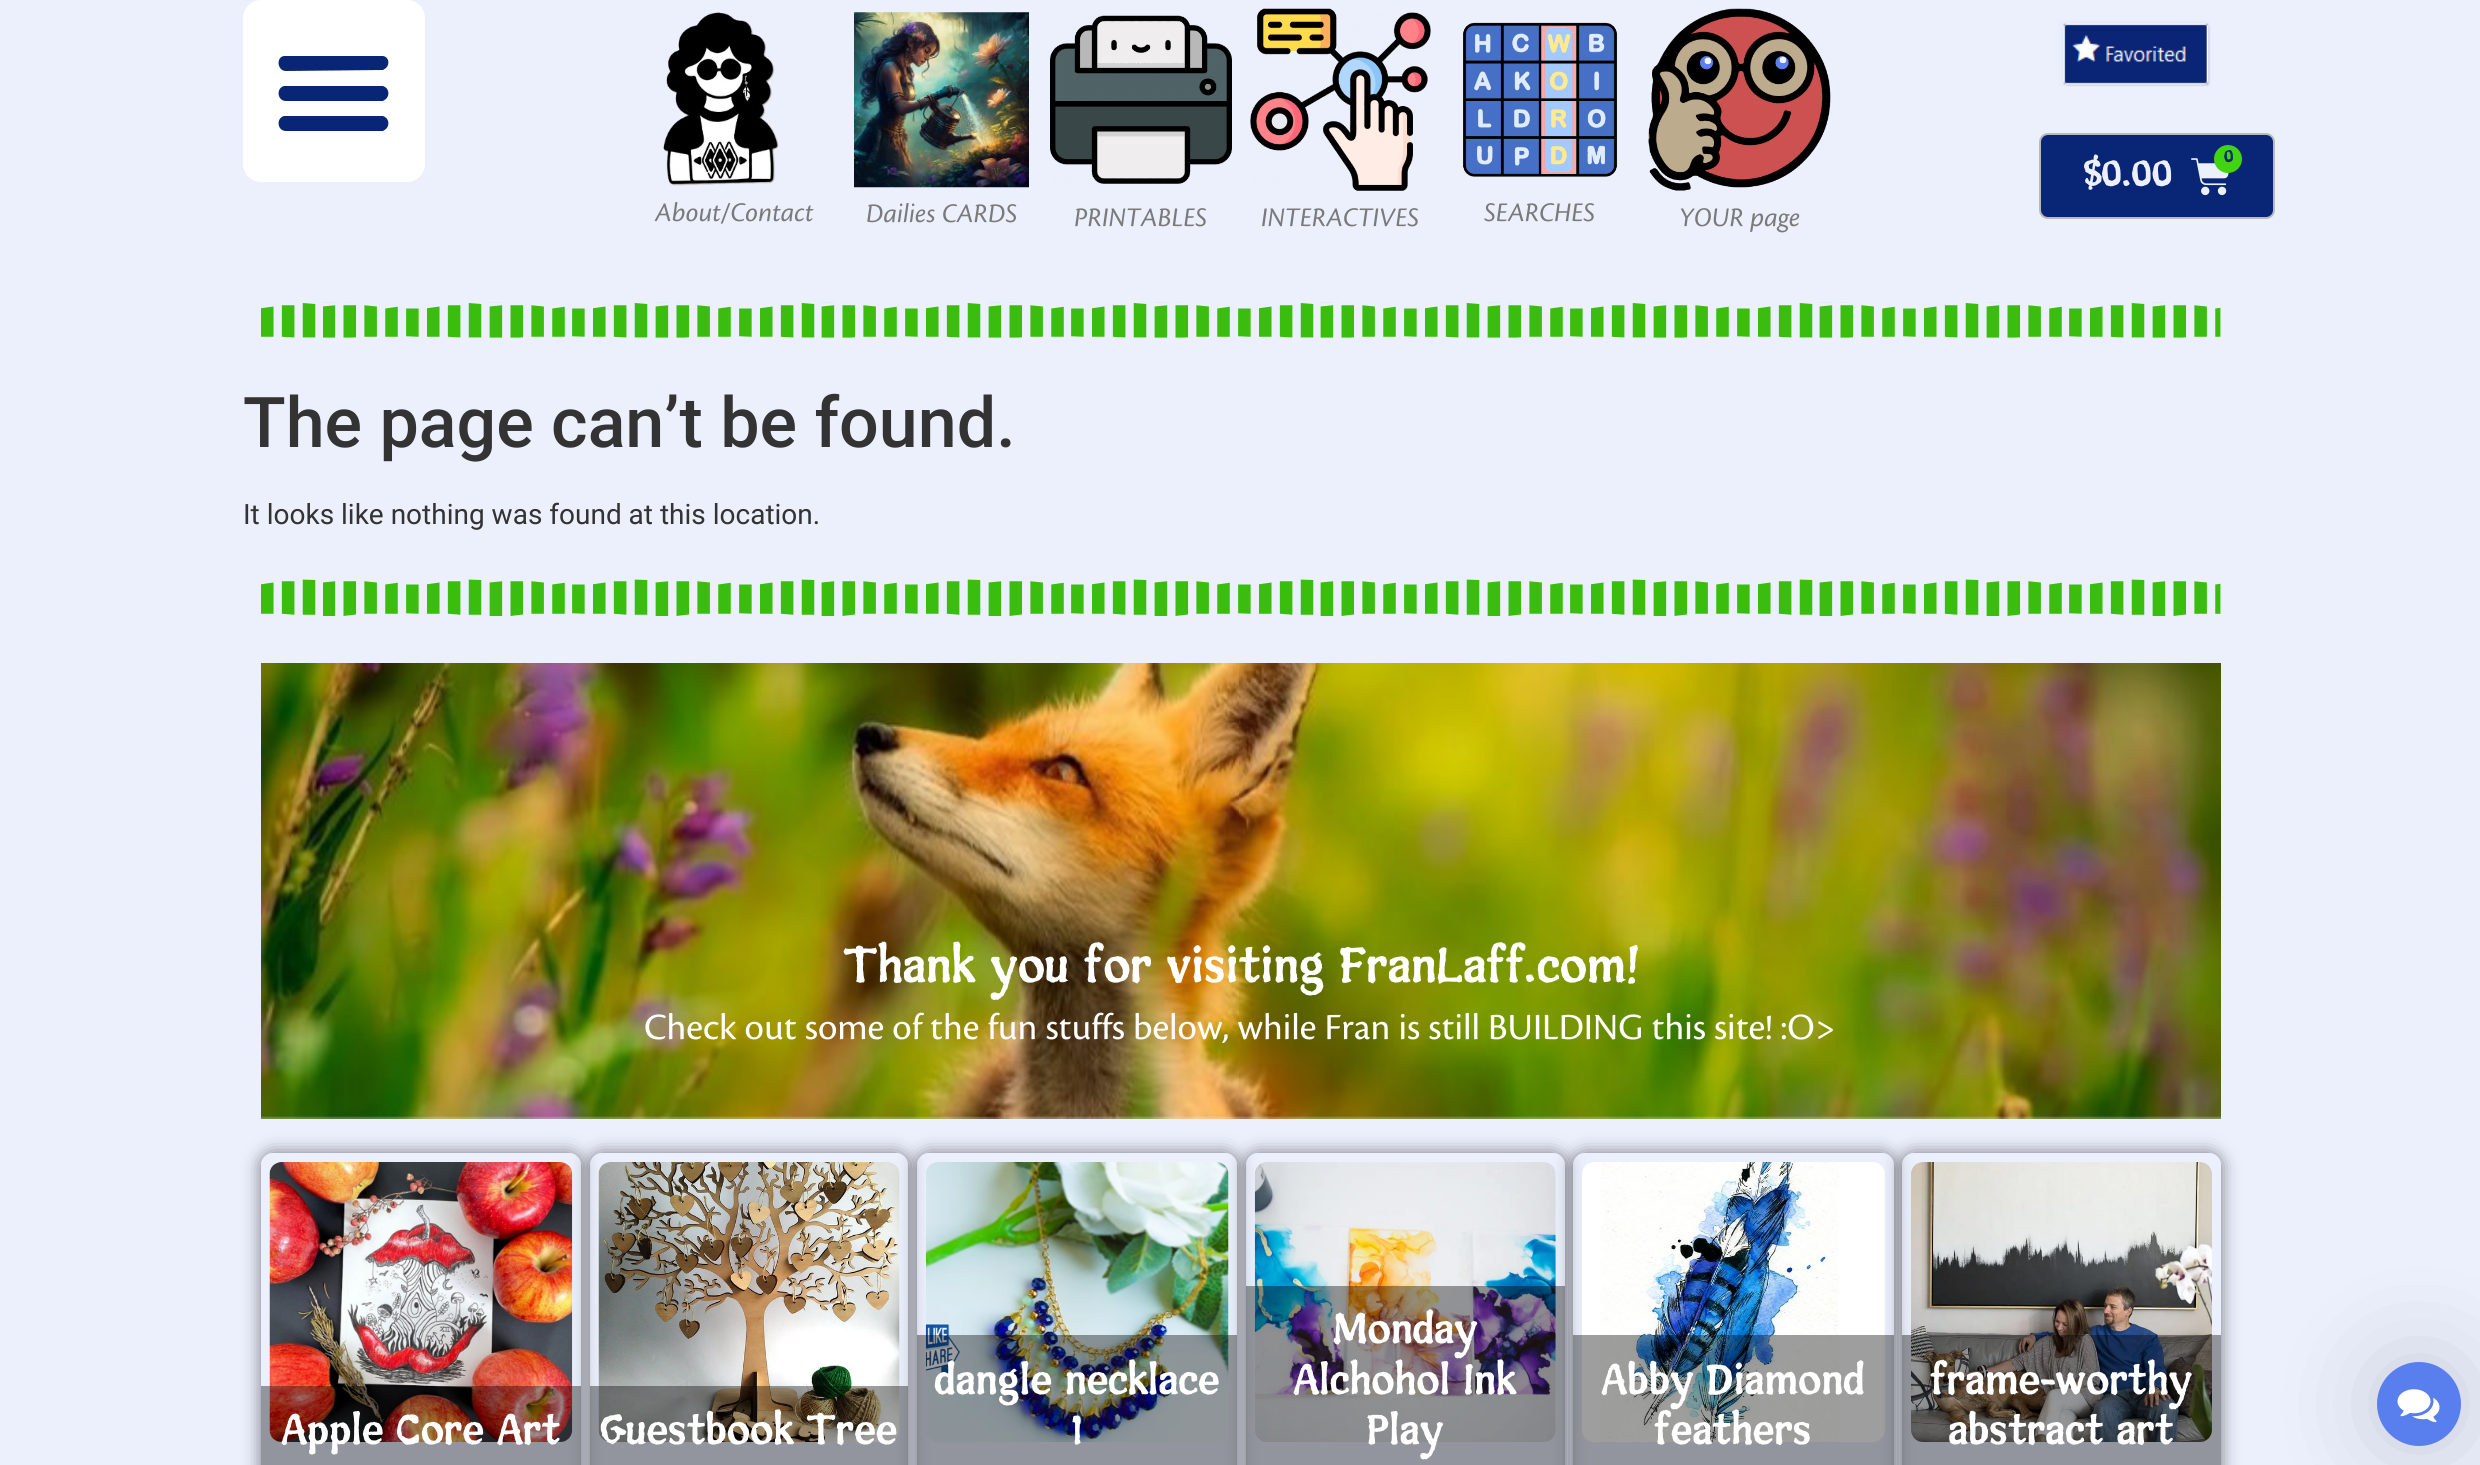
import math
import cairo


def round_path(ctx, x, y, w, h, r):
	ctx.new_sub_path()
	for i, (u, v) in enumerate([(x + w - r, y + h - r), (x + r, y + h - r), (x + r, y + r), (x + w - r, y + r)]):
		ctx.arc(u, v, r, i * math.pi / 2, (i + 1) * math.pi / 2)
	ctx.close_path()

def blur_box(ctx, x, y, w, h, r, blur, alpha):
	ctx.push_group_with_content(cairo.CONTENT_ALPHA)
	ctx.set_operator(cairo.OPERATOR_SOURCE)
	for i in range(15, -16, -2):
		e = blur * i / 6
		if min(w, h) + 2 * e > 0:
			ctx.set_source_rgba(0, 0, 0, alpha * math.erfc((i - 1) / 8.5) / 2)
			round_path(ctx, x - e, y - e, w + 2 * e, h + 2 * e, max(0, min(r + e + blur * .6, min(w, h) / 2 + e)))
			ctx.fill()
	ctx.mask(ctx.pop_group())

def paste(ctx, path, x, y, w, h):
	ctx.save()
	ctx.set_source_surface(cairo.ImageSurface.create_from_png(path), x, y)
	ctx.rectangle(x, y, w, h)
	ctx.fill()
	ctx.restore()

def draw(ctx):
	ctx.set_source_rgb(0.922, 0.941, 0.992)
	ctx.paint()
	ctx.set_source_rgb(1, 1, 1)
	round_path(ctx, 243, 0, 182, 182, 18)
	ctx.fill()
	ctx.set_source_rgb(0.039, 0.145, 0.463)
	ctx.new_path()
	ctx.move_to(286, 71)
	ctx.line_to(383, 70)
	ctx.line_to(386, 68)
	ctx.curve_to(390, 64, 389, 57, 383, 56)
	ctx.line_to(284, 56)
	ctx.curve_to(276, 57, 277, 71, 286, 71)
	ctx.close_path()
	ctx.move_to(286, 101)
	ctx.line_to(383, 101)
	ctx.line_to(386, 99)
	ctx.curve_to(390, 95, 389, 88, 383, 86)
	ctx.line_to(284, 86)
	ctx.curve_to(276, 88, 277, 101, 286, 101)
	ctx.close_path()
	ctx.move_to(286, 131)
	ctx.line_to(383, 131)
	ctx.line_to(386, 129)
	ctx.curve_to(390, 125, 389, 118, 383, 116)
	ctx.line_to(284, 116)
	ctx.curve_to(276, 118, 277, 131, 286, 131)
	ctx.close_path()
	ctx.fill()
	paste(ctx, 'media/1.png', 2058, 20, 153, 67)
	round_path(ctx, 2040, 134, 234, 84, 8)
	ctx.fill_preserve()
	ctx.set_source_rgb(0.729, 0.729, 0.729)
	ctx.stroke()
	ctx.select_font_face('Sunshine', cairo.FONT_SLANT_NORMAL, cairo.FONT_WEIGHT_BOLD)
	ctx.set_font_size(38.5)
	ctx.set_source_rgb(0.922, 0.941, 0.992)
	ctx.move_to(2083, 186)
	ctx.show_text('$0.00')
	paste(ctx, 'media/2.png', 2191, 158, 38, 38)
	ctx.set_source_rgb(0.259, 0.831, 0.067)
	ctx.arc(2228, 159, 14, 0, 2 * math.pi)
	ctx.fill()
	ctx.set_font_size(18)
	ctx.set_source_rgb(0.039, 0.145, 0.463)
	ctx.move_to(2224, 162)
	ctx.show_text('0')
	paste(ctx, 'media/3.png', 663, 12, 116, 174)
	ctx.select_font_face('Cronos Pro', cairo.FONT_SLANT_ITALIC)
	ctx.set_font_size(28)
	ctx.set_source_rgb(0.478, 0.478, 0.478)
	ctx.move_to(655, 221)
	ctx.show_text('About/Contact')
	paste(ctx, 'media/4.png', 854, 12, 175, 176)
	ctx.move_to(866, 222)
	ctx.show_text('Dailies CARDS')
	paste(ctx, 'media/5.png', 1050, 15, 182, 169)
	ctx.move_to(1074, 226)
	ctx.show_text('PRINTABLES')
	paste(ctx, 'media/6.png', 1250, 8, 181, 183)
	ctx.move_to(1261, 226)
	ctx.show_text('INTERACTIVES')
	paste(ctx, 'media/7.png', 1463, 22, 155, 155)
	ctx.move_to(1484, 221)
	ctx.show_text('SEARCHES')
	paste(ctx, 'media/8.png', 1648, 8, 183, 183)
	ctx.move_to(1679, 226)
	ctx.show_text('YOUR page')
	paste(ctx, 'media/9.png', 261, 302, 1960, 36)
	ctx.select_font_face('Roboto Medium')
	ctx.set_font_size(70)
	ctx.set_source_rgb(0.2, 0.2, 0.2)
	ctx.move_to(243, 447)
	ctx.show_text('The page can’t be found.')
	ctx.select_font_face('Roboto')
	ctx.set_font_size(28)
	ctx.move_to(243, 524)
	ctx.show_text('It looks like nothing was found at this location.')
	paste(ctx, 'media/10.png', 261, 579, 1960, 37)
	paste(ctx, 'media/11.png', 261, 663, 1960, 456)
	ctx.select_font_face('Sunshine', cairo.FONT_SLANT_NORMAL, cairo.FONT_WEIGHT_BOLD)
	ctx.set_font_size(49)
	ctx.set_source_rgb(1, 1, 1)
	ctx.move_to(843, 982)
	ctx.show_text('Thank you for visiting FranLaff.com!')
	ctx.select_font_face('Cronos Pro')
	ctx.set_font_size(38.5)
	ctx.move_to(644, 1039)
	ctx.show_text('Check out some of the fun stuffs below, while Fran is still BUILDING this site! :O>')
	ctx.save()
	ctx.set_fill_rule(cairo.FILL_RULE_EVEN_ODD)
	ctx.new_path()
	ctx.move_to(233, 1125)
	ctx.line_to(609, 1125)
	ctx.line_to(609, 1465)
	ctx.line_to(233, 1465)
	ctx.close_path()
	ctx.move_to(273, 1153)
	ctx.line_to(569, 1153)
	ctx.curve_to(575.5, 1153, 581, 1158.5, 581, 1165)
	ctx.line_to(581, 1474)
	ctx.curve_to(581, 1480.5, 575.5, 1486, 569, 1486)
	ctx.line_to(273, 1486)
	ctx.curve_to(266.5, 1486, 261, 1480.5, 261, 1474)
	ctx.line_to(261, 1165)
	ctx.curve_to(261, 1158.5, 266.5, 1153, 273, 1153)
	ctx.close_path()
	ctx.clip()
	ctx.set_source_rgb(0, 0, 0)
	blur_box(ctx, 261, 1153, 320, 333, 12, 9, 0.5)
	ctx.restore()
	ctx.save()
	ctx.set_fill_rule(cairo.FILL_RULE_EVEN_ODD)
	ctx.new_path()
	ctx.move_to(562, 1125)
	ctx.line_to(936, 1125)
	ctx.line_to(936, 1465)
	ctx.line_to(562, 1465)
	ctx.close_path()
	ctx.move_to(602, 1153)
	ctx.line_to(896, 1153)
	ctx.curve_to(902.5, 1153, 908, 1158.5, 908, 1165)
	ctx.line_to(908, 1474)
	ctx.curve_to(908, 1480.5, 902.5, 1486, 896, 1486)
	ctx.line_to(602, 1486)
	ctx.curve_to(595.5, 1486, 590, 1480.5, 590, 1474)
	ctx.line_to(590, 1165)
	ctx.curve_to(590, 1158.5, 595.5, 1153, 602, 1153)
	ctx.close_path()
	ctx.clip()
	ctx.set_source_rgb(0, 0, 0)
	blur_box(ctx, 590, 1153, 318, 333, 12, 9, 0.5)
	ctx.restore()
	paste(ctx, 'media/12.png', 269, 1162, 304, 280)
	ctx.set_source_rgba(0, 0, 0, 0.38)
	ctx.rectangle(261, 1386, 320, 79)
	ctx.fill()
	ctx.select_font_face('Sunshine', cairo.FONT_SLANT_NORMAL, cairo.FONT_WEIGHT_BOLD)
	ctx.set_font_size(42)
	ctx.set_source_rgb(1, 1, 1)
	ctx.move_to(281, 1444)
	ctx.show_text('Apple Core Art')
	ctx.save()
	ctx.set_fill_rule(cairo.FILL_RULE_EVEN_ODD)
	ctx.new_path()
	ctx.move_to(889, 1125)
	ctx.line_to(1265, 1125)
	ctx.line_to(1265, 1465)
	ctx.line_to(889, 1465)
	ctx.close_path()
	ctx.move_to(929, 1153)
	ctx.line_to(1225, 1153)
	ctx.curve_to(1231.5, 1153, 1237, 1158.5, 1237, 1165)
	ctx.line_to(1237, 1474)
	ctx.curve_to(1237, 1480.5, 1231.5, 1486, 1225, 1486)
	ctx.line_to(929, 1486)
	ctx.curve_to(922.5, 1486, 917, 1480.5, 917, 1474)
	ctx.line_to(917, 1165)
	ctx.curve_to(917, 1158.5, 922.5, 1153, 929, 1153)
	ctx.close_path()
	ctx.clip()
	ctx.set_source_rgb(0, 0, 0)
	blur_box(ctx, 917, 1153, 320, 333, 12, 9, 0.5)
	ctx.restore()
	paste(ctx, 'media/13.png', 598, 1162, 302, 280)
	ctx.set_source_rgba(0, 0, 0, 0.38)
	ctx.rectangle(590, 1386, 318, 79)
	ctx.fill()
	ctx.set_source_rgb(1, 1, 1)
	ctx.move_to(600, 1444)
	ctx.show_text('Guestbook Tree')
	ctx.save()
	ctx.set_fill_rule(cairo.FILL_RULE_EVEN_ODD)
	ctx.new_path()
	ctx.move_to(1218, 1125)
	ctx.line_to(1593, 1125)
	ctx.line_to(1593, 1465)
	ctx.line_to(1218, 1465)
	ctx.close_path()
	ctx.move_to(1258, 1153)
	ctx.line_to(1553, 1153)
	ctx.curve_to(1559.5, 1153, 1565, 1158.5, 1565, 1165)
	ctx.line_to(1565, 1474)
	ctx.curve_to(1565, 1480.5, 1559.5, 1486, 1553, 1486)
	ctx.line_to(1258, 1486)
	ctx.curve_to(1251.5, 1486, 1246, 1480.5, 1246, 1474)
	ctx.line_to(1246, 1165)
	ctx.curve_to(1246, 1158.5, 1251.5, 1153, 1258, 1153)
	ctx.close_path()
	ctx.clip()
	ctx.set_source_rgb(0, 0, 0)
	blur_box(ctx, 1246, 1153, 319, 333, 12, 9, 0.5)
	ctx.restore()
	paste(ctx, 'media/14.png', 925, 1162, 304, 280)
	ctx.set_source_rgba(0, 0, 0, 0.38)
	ctx.rectangle(917, 1335, 320, 130)
	ctx.fill()
	ctx.set_source_rgb(1, 1, 1)
	ctx.move_to(934, 1394)
	ctx.show_text('dangle necklace')
	ctx.move_to(1071, 1444)
	ctx.show_text('1')
	ctx.save()
	ctx.set_fill_rule(cairo.FILL_RULE_EVEN_ODD)
	ctx.new_path()
	ctx.move_to(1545, 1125)
	ctx.line_to(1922, 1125)
	ctx.line_to(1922, 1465)
	ctx.line_to(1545, 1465)
	ctx.close_path()
	ctx.move_to(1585, 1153)
	ctx.line_to(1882, 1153)
	ctx.curve_to(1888.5, 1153, 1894, 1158.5, 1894, 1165)
	ctx.line_to(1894, 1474)
	ctx.curve_to(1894, 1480.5, 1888.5, 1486, 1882, 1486)
	ctx.line_to(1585, 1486)
	ctx.curve_to(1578.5, 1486, 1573, 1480.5, 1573, 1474)
	ctx.line_to(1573, 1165)
	ctx.curve_to(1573, 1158.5, 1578.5, 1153, 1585, 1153)
	ctx.close_path()
	ctx.clip()
	ctx.set_source_rgb(0, 0, 0)
	blur_box(ctx, 1573, 1153, 321, 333, 12, 9, 0.5)
	ctx.restore()
	paste(ctx, 'media/15.png', 1254, 1162, 302, 280)
	ctx.set_source_rgba(0, 0, 0, 0.38)
	ctx.rectangle(1246, 1286, 319, 179)
	ctx.fill()
	ctx.set_source_rgb(1, 1, 1)
	for x, y, s in [
		(1332, 1343, 'Monday'),
		(1293, 1394, 'Alchohol Ink'),
		(1366, 1444, 'Play'),
	]:
		ctx.move_to(x, y)
		ctx.show_text(s)
	ctx.save()
	ctx.set_fill_rule(cairo.FILL_RULE_EVEN_ODD)
	ctx.new_path()
	ctx.move_to(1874, 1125)
	ctx.line_to(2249, 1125)
	ctx.line_to(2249, 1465)
	ctx.line_to(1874, 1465)
	ctx.close_path()
	ctx.move_to(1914, 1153)
	ctx.line_to(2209, 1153)
	ctx.curve_to(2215.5, 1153, 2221, 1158.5, 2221, 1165)
	ctx.line_to(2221, 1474)
	ctx.curve_to(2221, 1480.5, 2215.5, 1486, 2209, 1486)
	ctx.line_to(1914, 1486)
	ctx.curve_to(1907.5, 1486, 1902, 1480.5, 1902, 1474)
	ctx.line_to(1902, 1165)
	ctx.curve_to(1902, 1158.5, 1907.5, 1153, 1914, 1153)
	ctx.close_path()
	ctx.clip()
	ctx.set_source_rgb(0, 0, 0)
	blur_box(ctx, 1902, 1153, 319, 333, 12, 9, 0.5)
	ctx.restore()
	paste(ctx, 'media/16.png', 1582, 1162, 303, 280)
	ctx.set_source_rgba(0, 0, 0, 0.38)
	ctx.rectangle(1573, 1335, 321, 130)
	ctx.fill()
	ctx.set_source_rgb(1, 1, 1)
	ctx.move_to(1601, 1394)
	ctx.show_text('Abby Diamond')
	ctx.move_to(1654, 1444)
	ctx.show_text('feathers')
	paste(ctx, 'media/17.png', 1911, 1162, 301, 280)
	ctx.set_source_rgba(0, 0, 0, 0.38)
	ctx.rectangle(1902, 1335, 319, 130)
	ctx.fill()
	ctx.set_source_rgb(1, 1, 1)
	ctx.move_to(1930, 1394)
	ctx.show_text('frame-worthy')
	ctx.move_to(1948, 1444)
	ctx.show_text('abstract art')
	ctx.set_source_rgb(0, 0, 0)
	blur_box(ctx, 2377, 1362, 84, 84, 42, 52.5, 0.15)
	ctx.set_source_rgb(0.349, 0.494, 0.929)
	ctx.arc(2419, 1404, 42, 0, 2 * math.pi)
	ctx.fill()
	paste(ctx, 'media/18.png', 2397, 1389, 43, 34)


surface = cairo.ImageSurface(cairo.FORMAT_RGB24, 2480, 1465)
ctx = cairo.Context(surface)
options = cairo.FontOptions()
options.set_hint_metrics(cairo.HINT_METRICS_OFF)
options.set_hint_style(cairo.HINT_STYLE_NONE)
ctx.set_font_options(options)
ctx.set_miter_limit(4)
draw(ctx)
surface.write_to_png('image.png')
